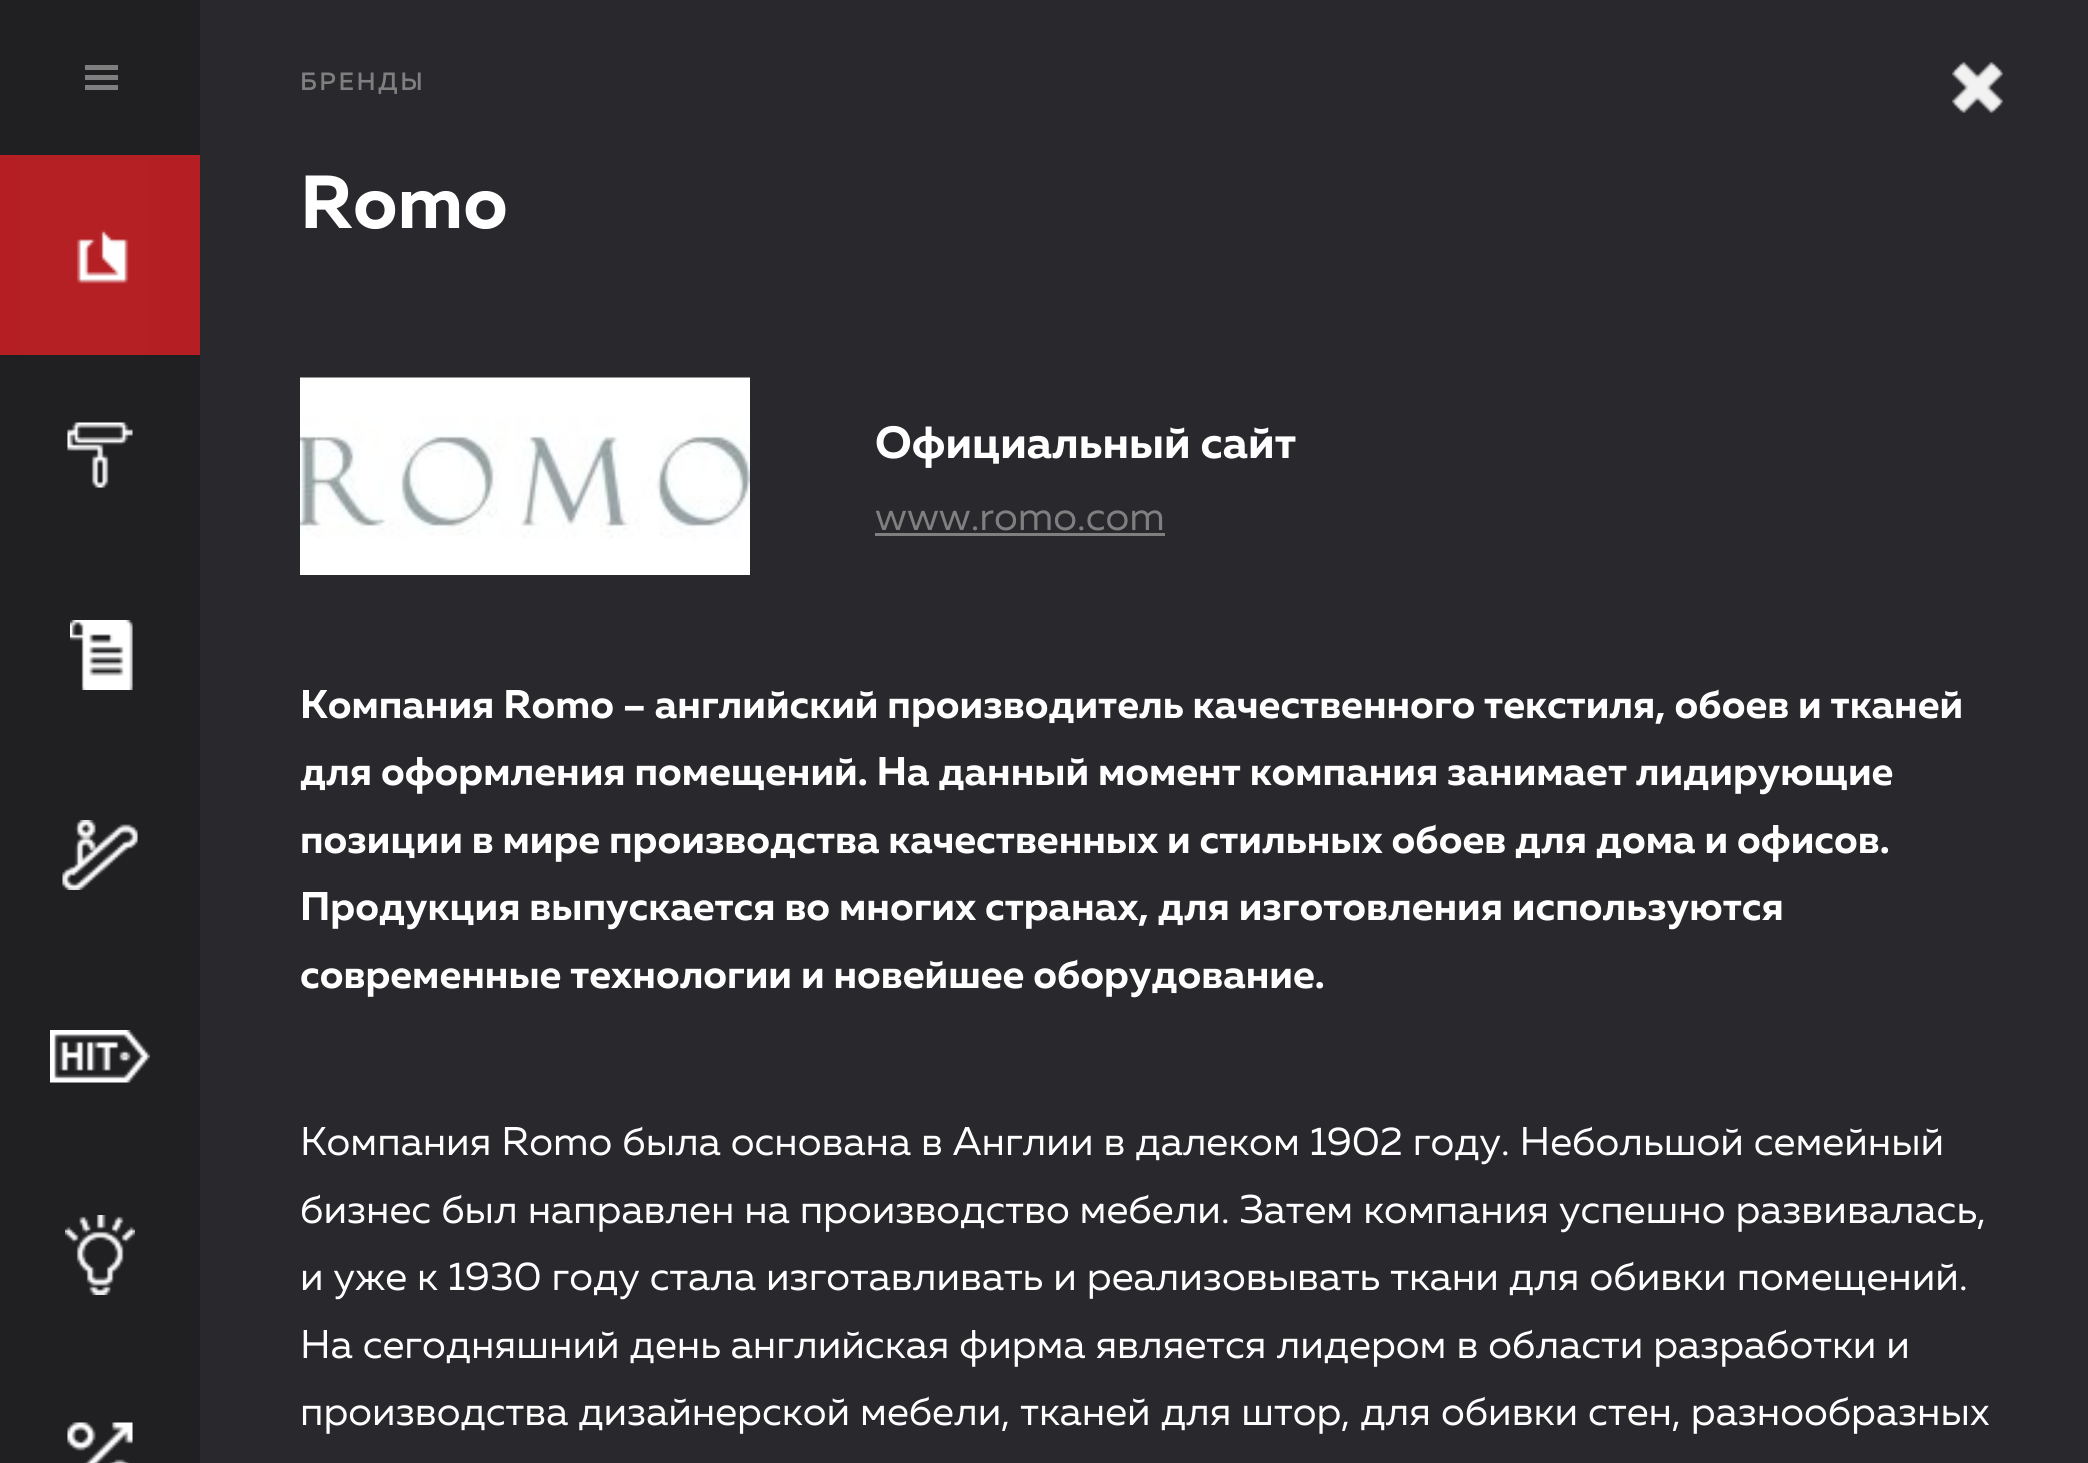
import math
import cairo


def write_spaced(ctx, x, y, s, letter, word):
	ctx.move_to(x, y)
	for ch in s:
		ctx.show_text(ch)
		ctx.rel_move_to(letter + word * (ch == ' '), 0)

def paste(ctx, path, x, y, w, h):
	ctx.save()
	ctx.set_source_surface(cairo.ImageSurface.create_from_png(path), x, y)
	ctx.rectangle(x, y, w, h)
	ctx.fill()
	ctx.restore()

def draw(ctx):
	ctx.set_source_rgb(0.157, 0.157, 0.176)
	ctx.paint()
	paste(ctx, 'media/1.png', 1952, 62, 51, 51)
	paste(ctx, 'media/2.png', 1952, 62, 51, 51)
	paste(ctx, 'media/3.png', 1952, 62, 51, 51)
	paste(ctx, 'media/4.png', 1952, 62, 51, 51)
	ctx.set_source_rgb(0.125, 0.125, 0.137)
	ctx.rectangle(0, 0, 200, 1463)
	ctx.fill()
	ctx.set_source_rgb(0.498, 0.498, 0.498)
	ctx.rectangle(85, 65, 33, 5)
	ctx.rectangle(85, 75, 33, 5)
	ctx.rectangle(85, 85, 33, 5)
	ctx.fill()
	paste(ctx, 'media/5.png', 0, 155, 200, 200)
	paste(ctx, 'media/6.png', 67, 422, 66, 66)
	paste(ctx, 'media/7.png', 70, 620, 63, 70)
	paste(ctx, 'media/8.png', 62, 820, 76, 70)
	paste(ctx, 'media/9.png', 50, 1030, 100, 53)
	paste(ctx, 'media/10.png', 65, 1215, 70, 80)
	paste(ctx, 'media/11.png', 67, 1422, 66, 41)
	ctx.select_font_face('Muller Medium')
	ctx.set_font_size(25)
	write_spaced(ctx, 300, 90, 'БРЕНДЫ', 2.5, 0)
	ctx.select_font_face('Muller', cairo.FONT_SLANT_NORMAL, cairo.FONT_WEIGHT_BOLD)
	ctx.set_font_size(75)
	ctx.set_source_rgb(1, 1, 1)
	ctx.move_to(300, 228)
	ctx.show_text('Romo')
	paste(ctx, 'media/12.png', 300, 377, 450, 198)
	ctx.set_font_size(45)
	ctx.move_to(875, 458)
	ctx.show_text('Официальный сайт')
	ctx.select_font_face('Muller')
	ctx.set_font_size(40)
	ctx.set_source_rgb(0.498, 0.498, 0.498)
	ctx.move_to(875, 530)
	ctx.show_text('www.romo.com')
	ctx.rectangle(875, 533, 290, 3)
	ctx.fill()
	ctx.select_font_face('Muller', cairo.FONT_SLANT_NORMAL, cairo.FONT_WEIGHT_BOLD)
	ctx.set_source_rgb(1, 1, 1)
	for x, y, s in [
		(300, 718, 'Компания Romo – английский производитель качественного текстиля, обоев и тканей'),
		(300, 785, 'для оформления помещений. На данный момент компания занимает лидирующие'),
		(300, 853, 'позиции в мире производства качественных и стильных обоев для дома и офисов.'),
		(300, 920, 'Продукция выпускается во многих странах, для изготовления используются'),
		(300, 988, 'современные технологии и новейшее оборудование.'),
	]:
		ctx.move_to(x, y)
		ctx.show_text(s)
	ctx.select_font_face('Muller')
	for x, y, s in [
		(300, 1155, 'Компания Romo была основана в Англии в далеком 1902 году. Небольшой семейный'),
		(300, 1223, 'бизнес был направлен на производство мебели. Затем компания успешно развивалась,'),
		(300, 1290, 'и уже к 1930 году стала изготавливать и реализовывать ткани для обивки помещений.'),
		(300, 1358, 'На сегодняшний день английская фирма является лидером в области разработки и'),
		(300, 1425, 'производства дизайнерской мебели, тканей для штор, для обивки стен, разнообразных'),
	]:
		ctx.move_to(x, y)
		ctx.show_text(s)


surface = cairo.ImageSurface(cairo.FORMAT_RGB24, 2088, 1463)
ctx = cairo.Context(surface)
options = cairo.FontOptions()
options.set_hint_metrics(cairo.HINT_METRICS_OFF)
options.set_hint_style(cairo.HINT_STYLE_NONE)
ctx.set_font_options(options)
ctx.set_miter_limit(4)
draw(ctx)
surface.write_to_png('image.png')
